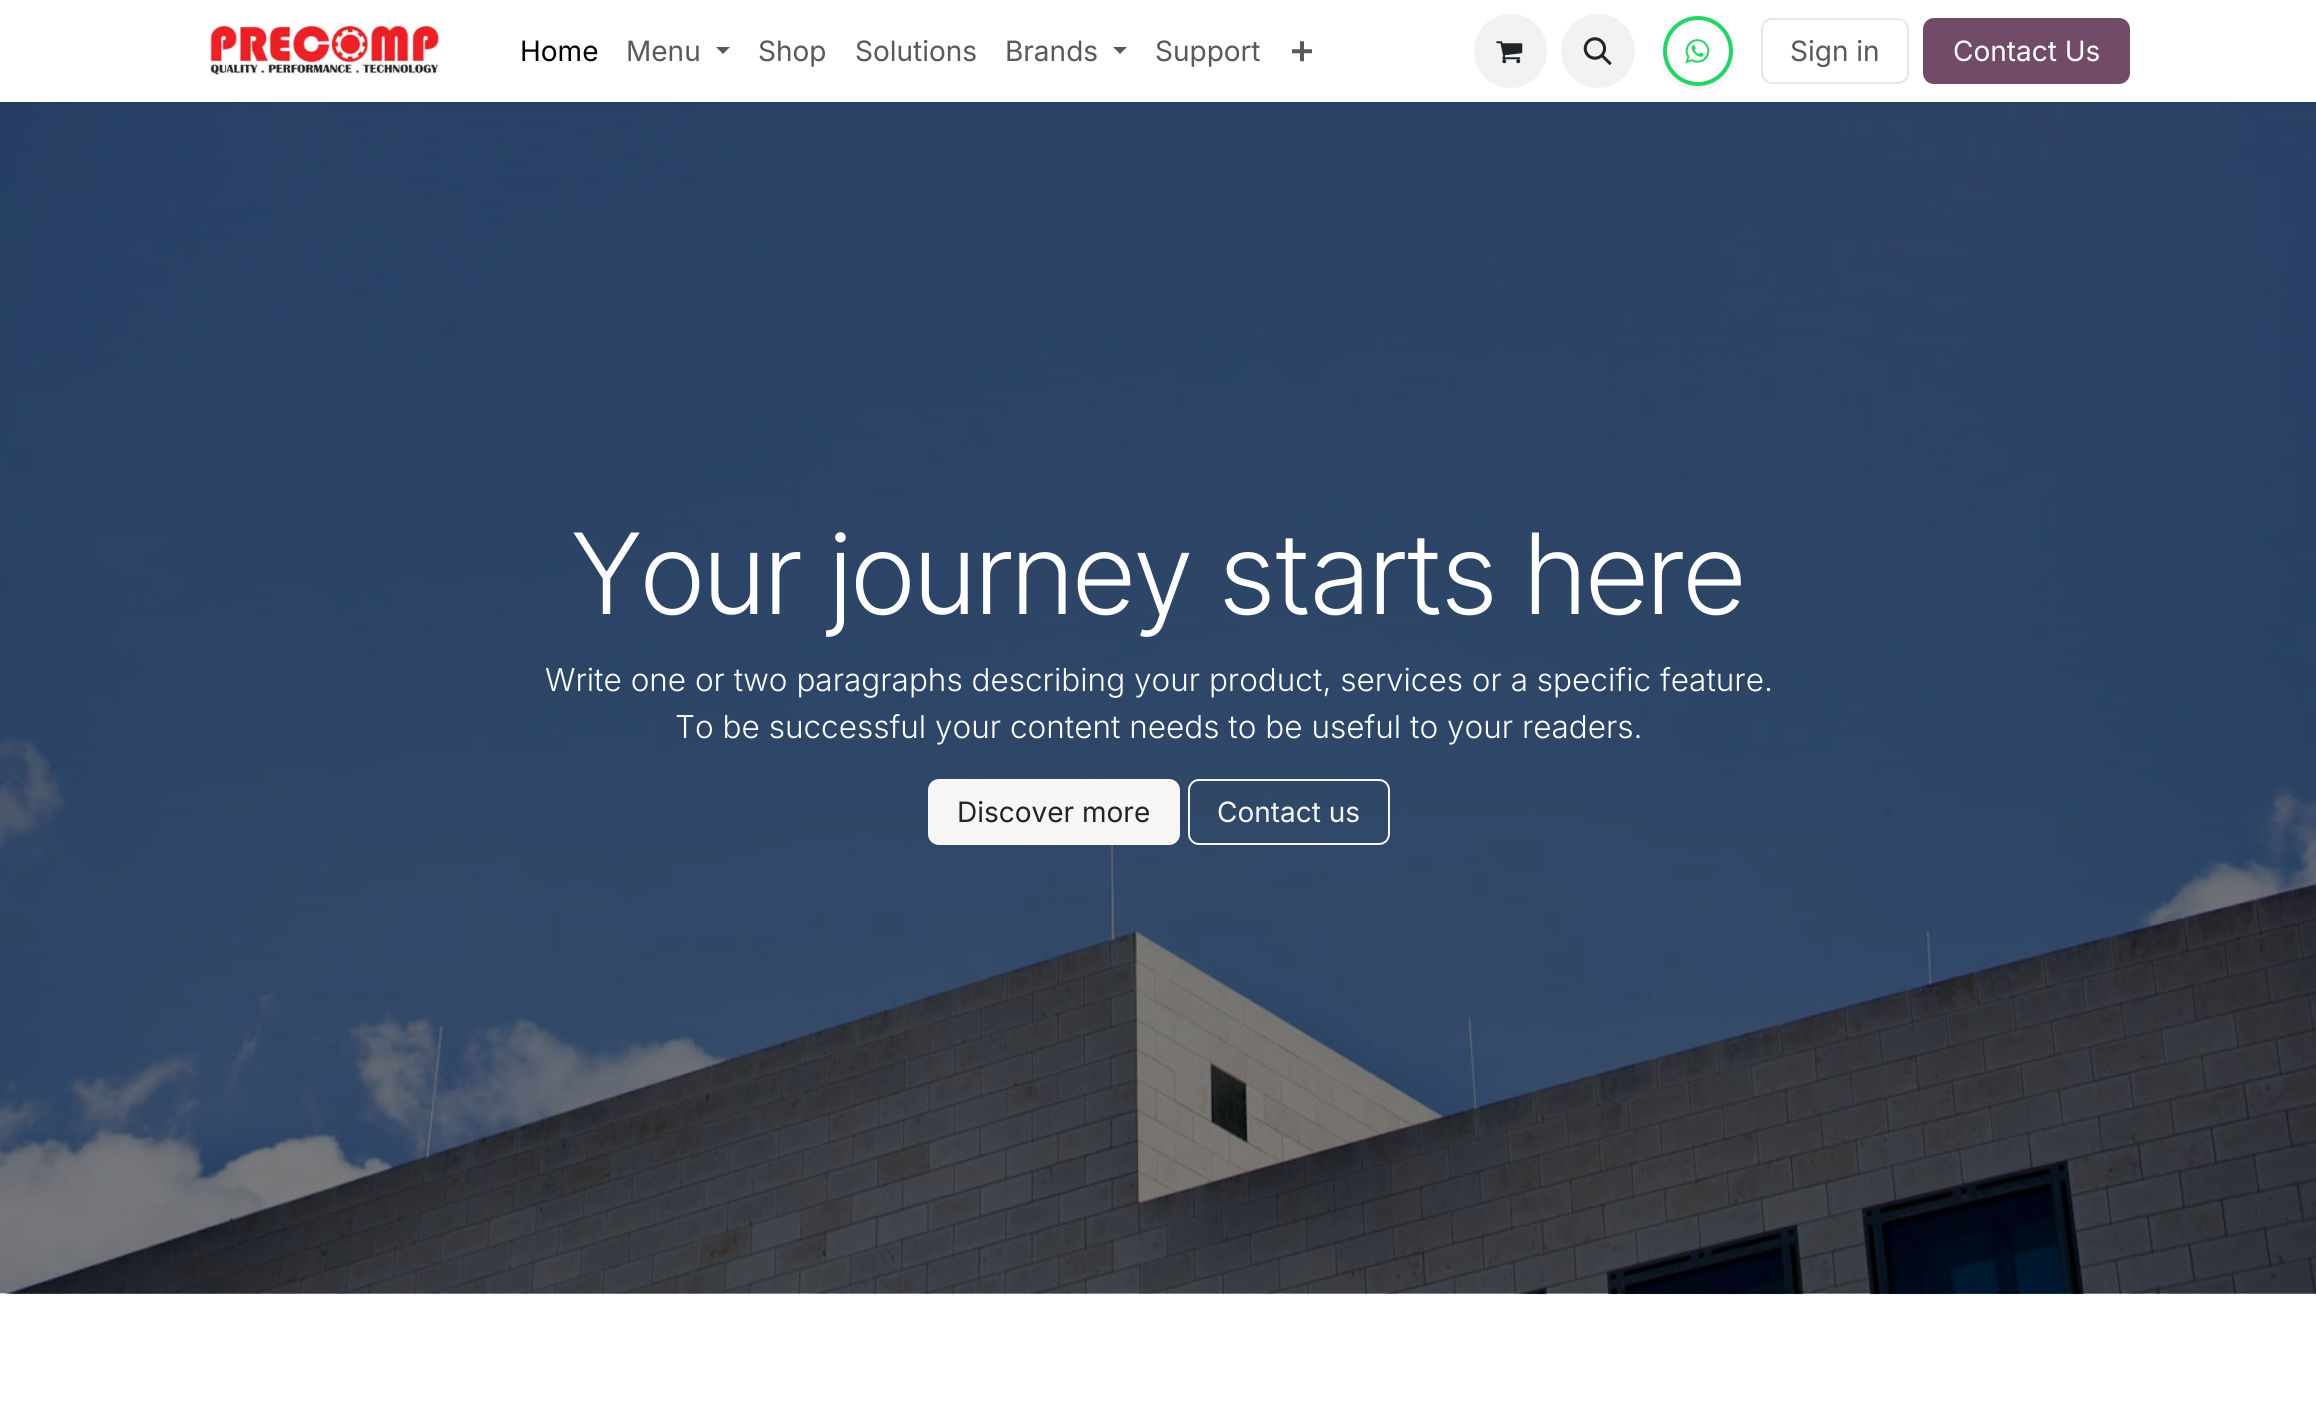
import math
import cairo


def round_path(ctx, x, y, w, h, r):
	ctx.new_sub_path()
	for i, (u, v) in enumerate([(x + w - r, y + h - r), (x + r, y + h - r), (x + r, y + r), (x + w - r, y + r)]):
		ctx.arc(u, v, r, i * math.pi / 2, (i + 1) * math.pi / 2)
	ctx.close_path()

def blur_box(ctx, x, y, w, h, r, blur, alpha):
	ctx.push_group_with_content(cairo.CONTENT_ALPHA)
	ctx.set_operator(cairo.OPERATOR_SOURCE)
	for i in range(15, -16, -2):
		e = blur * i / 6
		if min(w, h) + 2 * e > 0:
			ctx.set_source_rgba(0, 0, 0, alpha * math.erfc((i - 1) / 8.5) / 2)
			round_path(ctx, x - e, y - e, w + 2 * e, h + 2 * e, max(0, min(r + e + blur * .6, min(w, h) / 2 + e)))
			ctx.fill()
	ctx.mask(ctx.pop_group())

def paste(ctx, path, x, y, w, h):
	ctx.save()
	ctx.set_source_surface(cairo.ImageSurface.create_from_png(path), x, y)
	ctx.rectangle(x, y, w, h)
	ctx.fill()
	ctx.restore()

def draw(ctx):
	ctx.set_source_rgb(1, 1, 1)
	ctx.paint()
	paste(ctx, 'media/6.png', 0, 102, 2316, 1192)
	ctx.set_source_rgb(0, 0, 0)
	blur_box(ctx, 0, 2, 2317, 101, 0, 2.5, 0.1)
	ctx.set_source_rgb(1, 1, 1)
	ctx.rectangle(0, 0, 2316, 102)
	ctx.fill()
	paste(ctx, 'media/1.png', 209, 24, 231, 52)
	ctx.select_font_face('Inter')
	ctx.set_font_size(28)
	ctx.set_source_rgb(0, 0, 0)
	ctx.move_to(520, 61)
	ctx.show_text('Home')
	ctx.set_source_rgb(0.349, 0.349, 0.349)
	ctx.move_to(626, 61)
	ctx.show_text('Menu')
	ctx.new_path()
	ctx.move_to(716, 47)
	ctx.line_to(730, 47)
	ctx.line_to(723, 54)
	ctx.close_path()
	ctx.fill()
	for x, y, s in [
		(758, 61, 'Shop'),
		(855, 61, 'Solutions'),
		(1005, 61, 'Brands'),
	]:
		ctx.move_to(x, y)
		ctx.show_text(s)
	ctx.new_path()
	ctx.move_to(1113, 47)
	ctx.line_to(1127, 47)
	ctx.line_to(1120, 54)
	ctx.close_path()
	ctx.fill()
	ctx.move_to(1155, 61)
	ctx.show_text('Support')
	paste(ctx, 'media/2.png', 1292, 41, 20, 21)
	ctx.set_source_rgb(0.949, 0.949, 0.949)
	round_path(ctx, 1474, 14, 73, 74, 36.5)
	ctx.fill()
	paste(ctx, 'media/3.png', 1496, 41, 27, 23)
	ctx.arc(1598, 51, 37, 0, 2 * math.pi)
	ctx.fill()
	paste(ctx, 'media/4.png', 1583, 37, 29, 29)
	ctx.save()
	ctx.set_fill_rule(cairo.FILL_RULE_EVEN_ODD)
	ctx.new_path()
	ctx.move_to(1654, 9)
	ctx.line_to(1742, 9)
	ctx.line_to(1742, 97)
	ctx.line_to(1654, 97)
	ctx.close_path()
	ctx.move_to(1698, 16)
	ctx.curve_to(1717.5, 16, 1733, 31.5, 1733, 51)
	ctx.curve_to(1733, 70.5, 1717.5, 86, 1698, 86)
	ctx.curve_to(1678.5, 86, 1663, 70.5, 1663, 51)
	ctx.curve_to(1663, 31.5, 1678.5, 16, 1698, 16)
	ctx.close_path()
	ctx.clip()
	ctx.set_source_rgb(0, 0, 0)
	blur_box(ctx, 1663, 18, 70, 70, 35, 2.5, 0.1)
	ctx.restore()
	ctx.arc(1698, 51, 33, 0, 2 * math.pi)
	ctx.set_source_rgb(0.145, 0.827, 0.4)
	ctx.set_line_width(4)
	ctx.stroke()
	paste(ctx, 'media/5.png', 1685, 39, 25, 25)
	round_path(ctx, 1762, 19, 146, 64, 10)
	ctx.set_source_rgb(0.902, 0.902, 0.902)
	ctx.set_line_width(2)
	ctx.stroke()
	ctx.set_source_rgb(0.349, 0.349, 0.349)
	ctx.move_to(1790, 61)
	ctx.show_text('Sign in')
	ctx.set_source_rgb(0.443, 0.294, 0.404)
	round_path(ctx, 1924, 19, 205, 64, 10)
	ctx.fill_preserve()
	ctx.stroke()
	ctx.set_source_rgb(1, 1, 1)
	ctx.move_to(1953, 61)
	ctx.show_text('Contact Us')
	ctx.select_font_face('Inter Tight Light')
	ctx.set_font_size(112)
	ctx.move_to(572, 614)
	ctx.show_text('Your journey starts here')
	ctx.select_font_face('Inter Light')
	ctx.set_font_size(31.5)
	ctx.move_to(545, 691)
	ctx.show_text('Write one or two paragraphs describing your product, services or a specific feature.')
	ctx.move_to(675, 738)
	ctx.show_text('To be successful your content needs to be useful to your readers.')
	ctx.set_source_rgb(0.965, 0.961, 0.957)
	round_path(ctx, 929, 780, 250, 64, 10)
	ctx.fill_preserve()
	ctx.stroke()
	ctx.select_font_face('Inter')
	ctx.set_font_size(28)
	ctx.set_source_rgb(0.129, 0.145, 0.161)
	ctx.move_to(957, 822)
	ctx.show_text('Discover more')
	round_path(ctx, 1189, 780, 200, 64, 10)
	ctx.set_source_rgb(0.965, 0.961, 0.957)
	ctx.stroke()
	ctx.move_to(1217, 822)
	ctx.show_text('Contact us')


surface = cairo.ImageSurface(cairo.FORMAT_RGB24, 2316, 1424)
ctx = cairo.Context(surface)
options = cairo.FontOptions()
options.set_hint_metrics(cairo.HINT_METRICS_OFF)
options.set_hint_style(cairo.HINT_STYLE_NONE)
ctx.set_font_options(options)
ctx.set_miter_limit(4)
draw(ctx)
surface.write_to_png('image.png')
